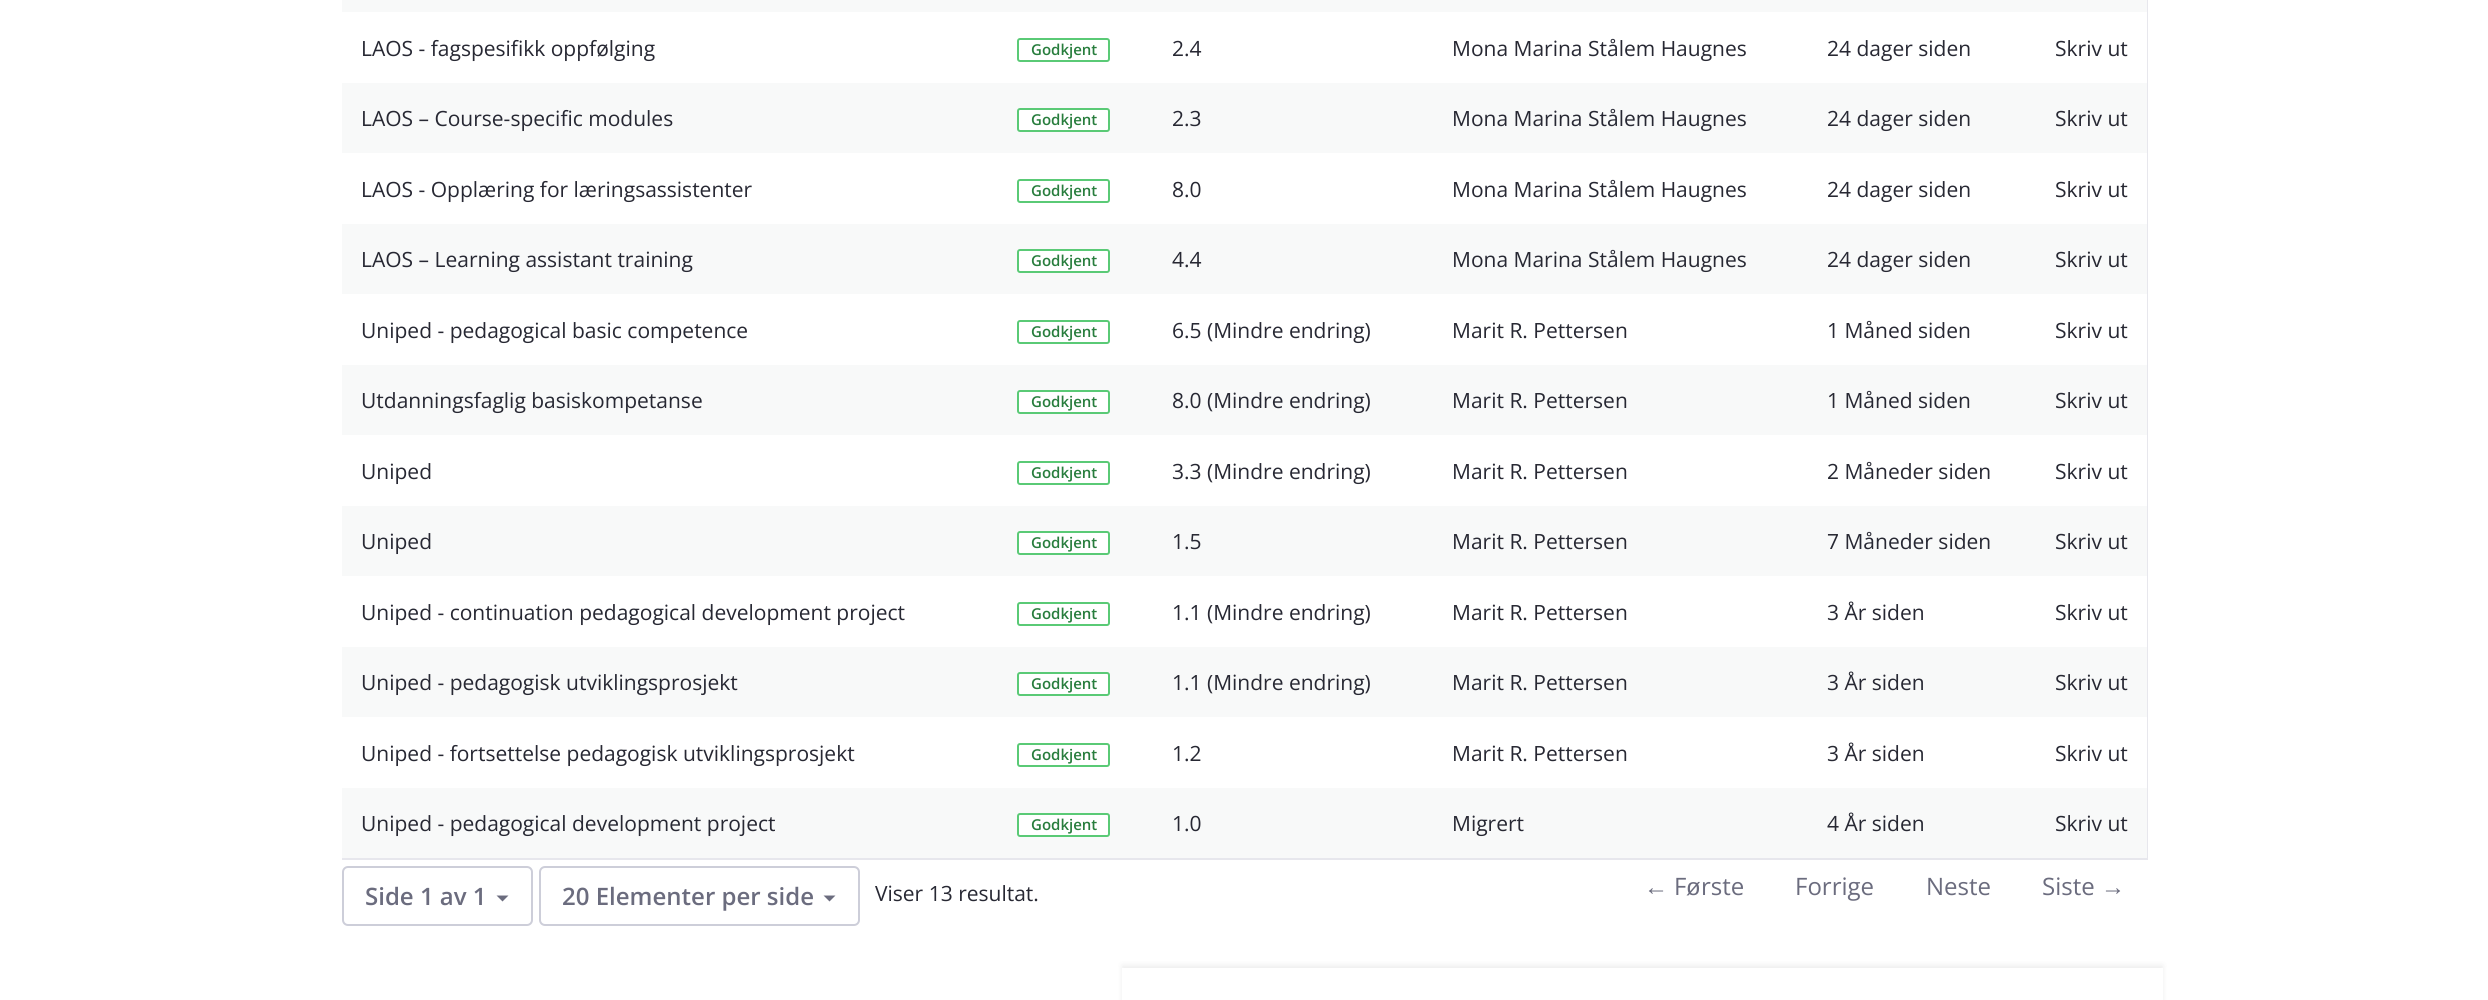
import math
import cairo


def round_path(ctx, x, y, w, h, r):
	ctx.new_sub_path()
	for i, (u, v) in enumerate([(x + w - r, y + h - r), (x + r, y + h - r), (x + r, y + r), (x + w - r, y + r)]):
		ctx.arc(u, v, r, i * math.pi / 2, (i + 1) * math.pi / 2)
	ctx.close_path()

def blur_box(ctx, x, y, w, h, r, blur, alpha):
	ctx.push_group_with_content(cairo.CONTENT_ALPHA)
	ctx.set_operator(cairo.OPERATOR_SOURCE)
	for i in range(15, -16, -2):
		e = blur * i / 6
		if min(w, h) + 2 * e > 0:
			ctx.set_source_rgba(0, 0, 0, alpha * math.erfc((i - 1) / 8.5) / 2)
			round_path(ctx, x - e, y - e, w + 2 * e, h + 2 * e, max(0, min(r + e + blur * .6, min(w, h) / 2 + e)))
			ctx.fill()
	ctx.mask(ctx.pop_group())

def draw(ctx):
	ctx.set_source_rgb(1, 1, 1)
	ctx.paint()
	ctx.set_source_rgb(0.906, 0.906, 0.929)
	ctx.rectangle(2147, 0, 1, 860)
	ctx.rectangle(342, 858, 1806, 2)
	ctx.fill()
	ctx.set_source_rgb(0.969, 0.973, 0.976)
	ctx.rectangle(342, 0, 1805, 12)
	ctx.fill()
	ctx.select_font_face('Open Sans')
	ctx.set_font_size(21)
	ctx.set_source_rgb(0.153, 0.157, 0.2)
	ctx.move_to(361, 56)
	ctx.show_text('LAOS - fagspesifikk oppfølging')
	round_path(ctx, 1018, 39, 91, 22, 2)
	ctx.set_source_rgb(0.353, 0.792, 0.463)
	ctx.stroke()
	ctx.select_font_face('Open Sans SemiBold')
	ctx.set_font_size(15)
	ctx.set_source_rgb(0.157, 0.49, 0.239)
	ctx.move_to(1031, 55)
	ctx.show_text('Godkjent')
	ctx.select_font_face('Open Sans')
	ctx.set_font_size(21)
	ctx.set_source_rgb(0.153, 0.157, 0.2)
	for x, y, s in [
		(1172, 56, '2.4'),
		(1452, 56, 'Mona Marina Stålem Haugnes'),
		(1827, 56, '24 dager siden'),
		(2055, 56, 'Skriv ut'),
	]:
		ctx.move_to(x, y)
		ctx.show_text(s)
	ctx.set_source_rgb(0.969, 0.973, 0.976)
	ctx.rectangle(342, 83, 1805, 70)
	ctx.fill()
	ctx.set_source_rgb(0.153, 0.157, 0.2)
	ctx.move_to(361, 126)
	ctx.show_text('LAOS – Course-specific modules')
	ctx.set_source_rgb(1, 1, 1)
	round_path(ctx, 1018, 109, 91, 22, 2)
	ctx.fill_preserve()
	ctx.set_source_rgb(0.353, 0.792, 0.463)
	ctx.stroke()
	ctx.select_font_face('Open Sans SemiBold')
	ctx.set_font_size(15)
	ctx.set_source_rgb(0.157, 0.49, 0.239)
	ctx.move_to(1031, 125)
	ctx.show_text('Godkjent')
	ctx.select_font_face('Open Sans')
	ctx.set_font_size(21)
	ctx.set_source_rgb(0.153, 0.157, 0.2)
	for x, y, s in [
		(1172, 126, '2.3'),
		(1452, 126, 'Mona Marina Stålem Haugnes'),
		(1827, 126, '24 dager siden'),
		(2055, 126, 'Skriv ut'),
		(361, 197, 'LAOS - Opplæring for læringsassistenter'),
	]:
		ctx.move_to(x, y)
		ctx.show_text(s)
	round_path(ctx, 1018, 180, 91, 22, 2)
	ctx.set_source_rgb(0.353, 0.792, 0.463)
	ctx.stroke()
	ctx.select_font_face('Open Sans SemiBold')
	ctx.set_font_size(15)
	ctx.set_source_rgb(0.157, 0.49, 0.239)
	ctx.move_to(1031, 196)
	ctx.show_text('Godkjent')
	ctx.select_font_face('Open Sans')
	ctx.set_font_size(21)
	ctx.set_source_rgb(0.153, 0.157, 0.2)
	for x, y, s in [
		(1172, 197, '8.0'),
		(1452, 197, 'Mona Marina Stålem Haugnes'),
		(1827, 197, '24 dager siden'),
		(2055, 197, 'Skriv ut'),
	]:
		ctx.move_to(x, y)
		ctx.show_text(s)
	ctx.set_source_rgb(0.969, 0.973, 0.976)
	ctx.rectangle(342, 224, 1805, 70)
	ctx.fill()
	ctx.set_source_rgb(0.153, 0.157, 0.2)
	ctx.move_to(361, 267)
	ctx.show_text('LAOS – Learning assistant training')
	ctx.set_source_rgb(1, 1, 1)
	round_path(ctx, 1018, 250, 91, 22, 2)
	ctx.fill_preserve()
	ctx.set_source_rgb(0.353, 0.792, 0.463)
	ctx.stroke()
	ctx.select_font_face('Open Sans SemiBold')
	ctx.set_font_size(15)
	ctx.set_source_rgb(0.157, 0.49, 0.239)
	ctx.move_to(1031, 266)
	ctx.show_text('Godkjent')
	ctx.select_font_face('Open Sans')
	ctx.set_font_size(21)
	ctx.set_source_rgb(0.153, 0.157, 0.2)
	for x, y, s in [
		(1172, 267, '4.4'),
		(1452, 267, 'Mona Marina Stålem Haugnes'),
		(1827, 267, '24 dager siden'),
		(2055, 267, 'Skriv ut'),
		(361, 338, 'Uniped - pedagogical basic competence'),
	]:
		ctx.move_to(x, y)
		ctx.show_text(s)
	round_path(ctx, 1018, 321, 91, 22, 2)
	ctx.set_source_rgb(0.353, 0.792, 0.463)
	ctx.stroke()
	ctx.select_font_face('Open Sans SemiBold')
	ctx.set_font_size(15)
	ctx.set_source_rgb(0.157, 0.49, 0.239)
	ctx.move_to(1031, 337)
	ctx.show_text('Godkjent')
	ctx.select_font_face('Open Sans')
	ctx.set_font_size(21)
	ctx.set_source_rgb(0.153, 0.157, 0.2)
	for x, y, s in [
		(1172, 338, '6.5 (Mindre endring)'),
		(1452, 338, 'Marit R. Pettersen'),
		(1827, 338, '1 Måned siden'),
		(2055, 338, 'Skriv ut'),
	]:
		ctx.move_to(x, y)
		ctx.show_text(s)
	ctx.set_source_rgb(0.969, 0.973, 0.976)
	ctx.rectangle(342, 365, 1805, 70)
	ctx.fill()
	ctx.set_source_rgb(0.153, 0.157, 0.2)
	ctx.move_to(361, 408)
	ctx.show_text('Utdanningsfaglig basiskompetanse')
	ctx.set_source_rgb(1, 1, 1)
	round_path(ctx, 1018, 391, 91, 22, 2)
	ctx.fill_preserve()
	ctx.set_source_rgb(0.353, 0.792, 0.463)
	ctx.stroke()
	ctx.select_font_face('Open Sans SemiBold')
	ctx.set_font_size(15)
	ctx.set_source_rgb(0.157, 0.49, 0.239)
	ctx.move_to(1031, 407)
	ctx.show_text('Godkjent')
	ctx.select_font_face('Open Sans')
	ctx.set_font_size(21)
	ctx.set_source_rgb(0.153, 0.157, 0.2)
	for x, y, s in [
		(1172, 408, '8.0 (Mindre endring)'),
		(1452, 408, 'Marit R. Pettersen'),
		(1827, 408, '1 Måned siden'),
		(2055, 408, 'Skriv ut'),
		(361, 479, 'Uniped'),
	]:
		ctx.move_to(x, y)
		ctx.show_text(s)
	round_path(ctx, 1018, 462, 91, 22, 2)
	ctx.set_source_rgb(0.353, 0.792, 0.463)
	ctx.stroke()
	ctx.select_font_face('Open Sans SemiBold')
	ctx.set_font_size(15)
	ctx.set_source_rgb(0.157, 0.49, 0.239)
	ctx.move_to(1031, 478)
	ctx.show_text('Godkjent')
	ctx.select_font_face('Open Sans')
	ctx.set_font_size(21)
	ctx.set_source_rgb(0.153, 0.157, 0.2)
	for x, y, s in [
		(1172, 479, '3.3 (Mindre endring)'),
		(1452, 479, 'Marit R. Pettersen'),
		(1827, 479, '2 Måneder siden'),
		(2055, 479, 'Skriv ut'),
	]:
		ctx.move_to(x, y)
		ctx.show_text(s)
	ctx.set_source_rgb(0.969, 0.973, 0.976)
	ctx.rectangle(342, 506, 1805, 70)
	ctx.fill()
	ctx.set_source_rgb(0.153, 0.157, 0.2)
	ctx.move_to(361, 549)
	ctx.show_text('Uniped')
	ctx.set_source_rgb(1, 1, 1)
	round_path(ctx, 1018, 532, 91, 22, 2)
	ctx.fill_preserve()
	ctx.set_source_rgb(0.353, 0.792, 0.463)
	ctx.stroke()
	ctx.select_font_face('Open Sans SemiBold')
	ctx.set_font_size(15)
	ctx.set_source_rgb(0.157, 0.49, 0.239)
	ctx.move_to(1031, 548)
	ctx.show_text('Godkjent')
	ctx.select_font_face('Open Sans')
	ctx.set_font_size(21)
	ctx.set_source_rgb(0.153, 0.157, 0.2)
	for x, y, s in [
		(1172, 549, '1.5'),
		(1452, 549, 'Marit R. Pettersen'),
		(1827, 549, '7 Måneder siden'),
		(2055, 549, 'Skriv ut'),
		(361, 620, 'Uniped - continuation pedagogical development project'),
	]:
		ctx.move_to(x, y)
		ctx.show_text(s)
	round_path(ctx, 1018, 603, 91, 22, 2)
	ctx.set_source_rgb(0.353, 0.792, 0.463)
	ctx.stroke()
	ctx.select_font_face('Open Sans SemiBold')
	ctx.set_font_size(15)
	ctx.set_source_rgb(0.157, 0.49, 0.239)
	ctx.move_to(1031, 619)
	ctx.show_text('Godkjent')
	ctx.select_font_face('Open Sans')
	ctx.set_font_size(21)
	ctx.set_source_rgb(0.153, 0.157, 0.2)
	for x, y, s in [
		(1172, 620, '1.1 (Mindre endring)'),
		(1452, 620, 'Marit R. Pettersen'),
		(1827, 620, '3 År siden'),
		(2055, 620, 'Skriv ut'),
	]:
		ctx.move_to(x, y)
		ctx.show_text(s)
	ctx.set_source_rgb(0.969, 0.973, 0.976)
	ctx.rectangle(342, 647, 1805, 70)
	ctx.fill()
	ctx.set_source_rgb(0.153, 0.157, 0.2)
	ctx.move_to(361, 690)
	ctx.show_text('Uniped - pedagogisk utviklingsprosjekt')
	ctx.set_source_rgb(1, 1, 1)
	round_path(ctx, 1018, 673, 91, 22, 2)
	ctx.fill_preserve()
	ctx.set_source_rgb(0.353, 0.792, 0.463)
	ctx.stroke()
	ctx.select_font_face('Open Sans SemiBold')
	ctx.set_font_size(15)
	ctx.set_source_rgb(0.157, 0.49, 0.239)
	ctx.move_to(1031, 689)
	ctx.show_text('Godkjent')
	ctx.select_font_face('Open Sans')
	ctx.set_font_size(21)
	ctx.set_source_rgb(0.153, 0.157, 0.2)
	for x, y, s in [
		(1172, 690, '1.1 (Mindre endring)'),
		(1452, 690, 'Marit R. Pettersen'),
		(1827, 690, '3 År siden'),
		(2055, 690, 'Skriv ut'),
		(361, 761, 'Uniped - fortsettelse pedagogisk utviklingsprosjekt'),
	]:
		ctx.move_to(x, y)
		ctx.show_text(s)
	round_path(ctx, 1018, 744, 91, 22, 2)
	ctx.set_source_rgb(0.353, 0.792, 0.463)
	ctx.stroke()
	ctx.select_font_face('Open Sans SemiBold')
	ctx.set_font_size(15)
	ctx.set_source_rgb(0.157, 0.49, 0.239)
	ctx.move_to(1031, 760)
	ctx.show_text('Godkjent')
	ctx.select_font_face('Open Sans')
	ctx.set_font_size(21)
	ctx.set_source_rgb(0.153, 0.157, 0.2)
	for x, y, s in [
		(1172, 761, '1.2'),
		(1452, 761, 'Marit R. Pettersen'),
		(1827, 761, '3 År siden'),
		(2055, 761, 'Skriv ut'),
	]:
		ctx.move_to(x, y)
		ctx.show_text(s)
	ctx.set_source_rgb(0.969, 0.973, 0.976)
	ctx.rectangle(342, 788, 1805, 70)
	ctx.fill()
	ctx.set_source_rgb(0.153, 0.157, 0.2)
	ctx.move_to(361, 831)
	ctx.show_text('Uniped - pedagogical development project')
	ctx.set_source_rgb(1, 1, 1)
	round_path(ctx, 1018, 814, 91, 22, 2)
	ctx.fill_preserve()
	ctx.set_source_rgb(0.353, 0.792, 0.463)
	ctx.stroke()
	ctx.select_font_face('Open Sans SemiBold')
	ctx.set_font_size(15)
	ctx.set_source_rgb(0.157, 0.49, 0.239)
	ctx.move_to(1031, 830)
	ctx.show_text('Godkjent')
	ctx.select_font_face('Open Sans')
	ctx.set_font_size(21)
	ctx.set_source_rgb(0.153, 0.157, 0.2)
	for x, y, s in [
		(1172, 831, '1.0'),
		(1452, 831, 'Migrert'),
		(1827, 831, '4 År siden'),
		(2055, 831, 'Skriv ut'),
	]:
		ctx.move_to(x, y)
		ctx.show_text(s)
	round_path(ctx, 343, 867, 189, 58, 5)
	ctx.set_source_rgb(0.804, 0.808, 0.851)
	ctx.stroke()
	ctx.select_font_face('Open Sans SemiBold')
	ctx.set_font_size(24)
	ctx.set_source_rgb(0.42, 0.424, 0.494)
	ctx.move_to(365, 905)
	ctx.show_text('Side 1 av 1')
	ctx.new_path()
	ctx.move_to(496.5, 895.5)
	ctx.line_to(508.5, 895.5)
	ctx.line_to(502.5, 901.5)
	ctx.close_path()
	ctx.fill()
	round_path(ctx, 540, 867, 319, 58, 5)
	ctx.set_source_rgb(0.804, 0.808, 0.851)
	ctx.stroke()
	ctx.set_source_rgb(0.42, 0.424, 0.494)
	ctx.move_to(562, 905)
	ctx.show_text('20 Elementer per side')
	ctx.new_path()
	ctx.move_to(823.5, 895.5)
	ctx.line_to(835.5, 895.5)
	ctx.line_to(829.5, 901.5)
	ctx.close_path()
	ctx.fill()
	ctx.select_font_face('Open Sans')
	ctx.set_font_size(21)
	ctx.set_source_rgb(0.153, 0.157, 0.2)
	ctx.move_to(875, 901)
	ctx.show_text('Viser 13 resultat.')
	ctx.select_font_face('Liberation Sans')
	ctx.set_font_size(24)
	ctx.set_source_rgb(0.42, 0.424, 0.494)
	ctx.move_to(1644, 895)
	ctx.show_text('←')
	ctx.select_font_face('Open Sans')
	ctx.move_to(1674, 895)
	ctx.show_text('F')
	ctx.select_font_face('Liberation Sans')
	ctx.move_to(1686, 895)
	ctx.show_text('ø')
	ctx.select_font_face('Open Sans')
	for x, y, s in [
		(1701, 895, 'rste'),
		(1795, 895, 'Forrige'),
		(1926, 895, 'Neste'),
		(2042, 895, 'Siste'),
	]:
		ctx.move_to(x, y)
		ctx.show_text(s)
	ctx.select_font_face('Liberation Sans')
	ctx.move_to(2101, 895)
	ctx.show_text('→')
	ctx.save()
	ctx.set_fill_rule(cairo.FILL_RULE_EVEN_ODD)
	ctx.new_path()
	ctx.move_to(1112, 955)
	ctx.line_to(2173, 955)
	ctx.line_to(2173, 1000)
	ctx.line_to(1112, 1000)
	ctx.close_path()
	ctx.move_to(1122, 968)
	ctx.line_to(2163, 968)
	ctx.line_to(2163, 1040)
	ctx.line_to(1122, 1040)
	ctx.close_path()
	ctx.clip()
	ctx.set_source_rgb(0, 0, 0)
	blur_box(ctx, 1122, 965, 1041, 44, 0, 3, 0.07)
	ctx.restore()


surface = cairo.ImageSurface(cairo.FORMAT_RGB24, 2488, 1000)
ctx = cairo.Context(surface)
options = cairo.FontOptions()
options.set_hint_metrics(cairo.HINT_METRICS_OFF)
options.set_hint_style(cairo.HINT_STYLE_NONE)
ctx.set_font_options(options)
ctx.set_miter_limit(4)
draw(ctx)
surface.write_to_png('image.png')
